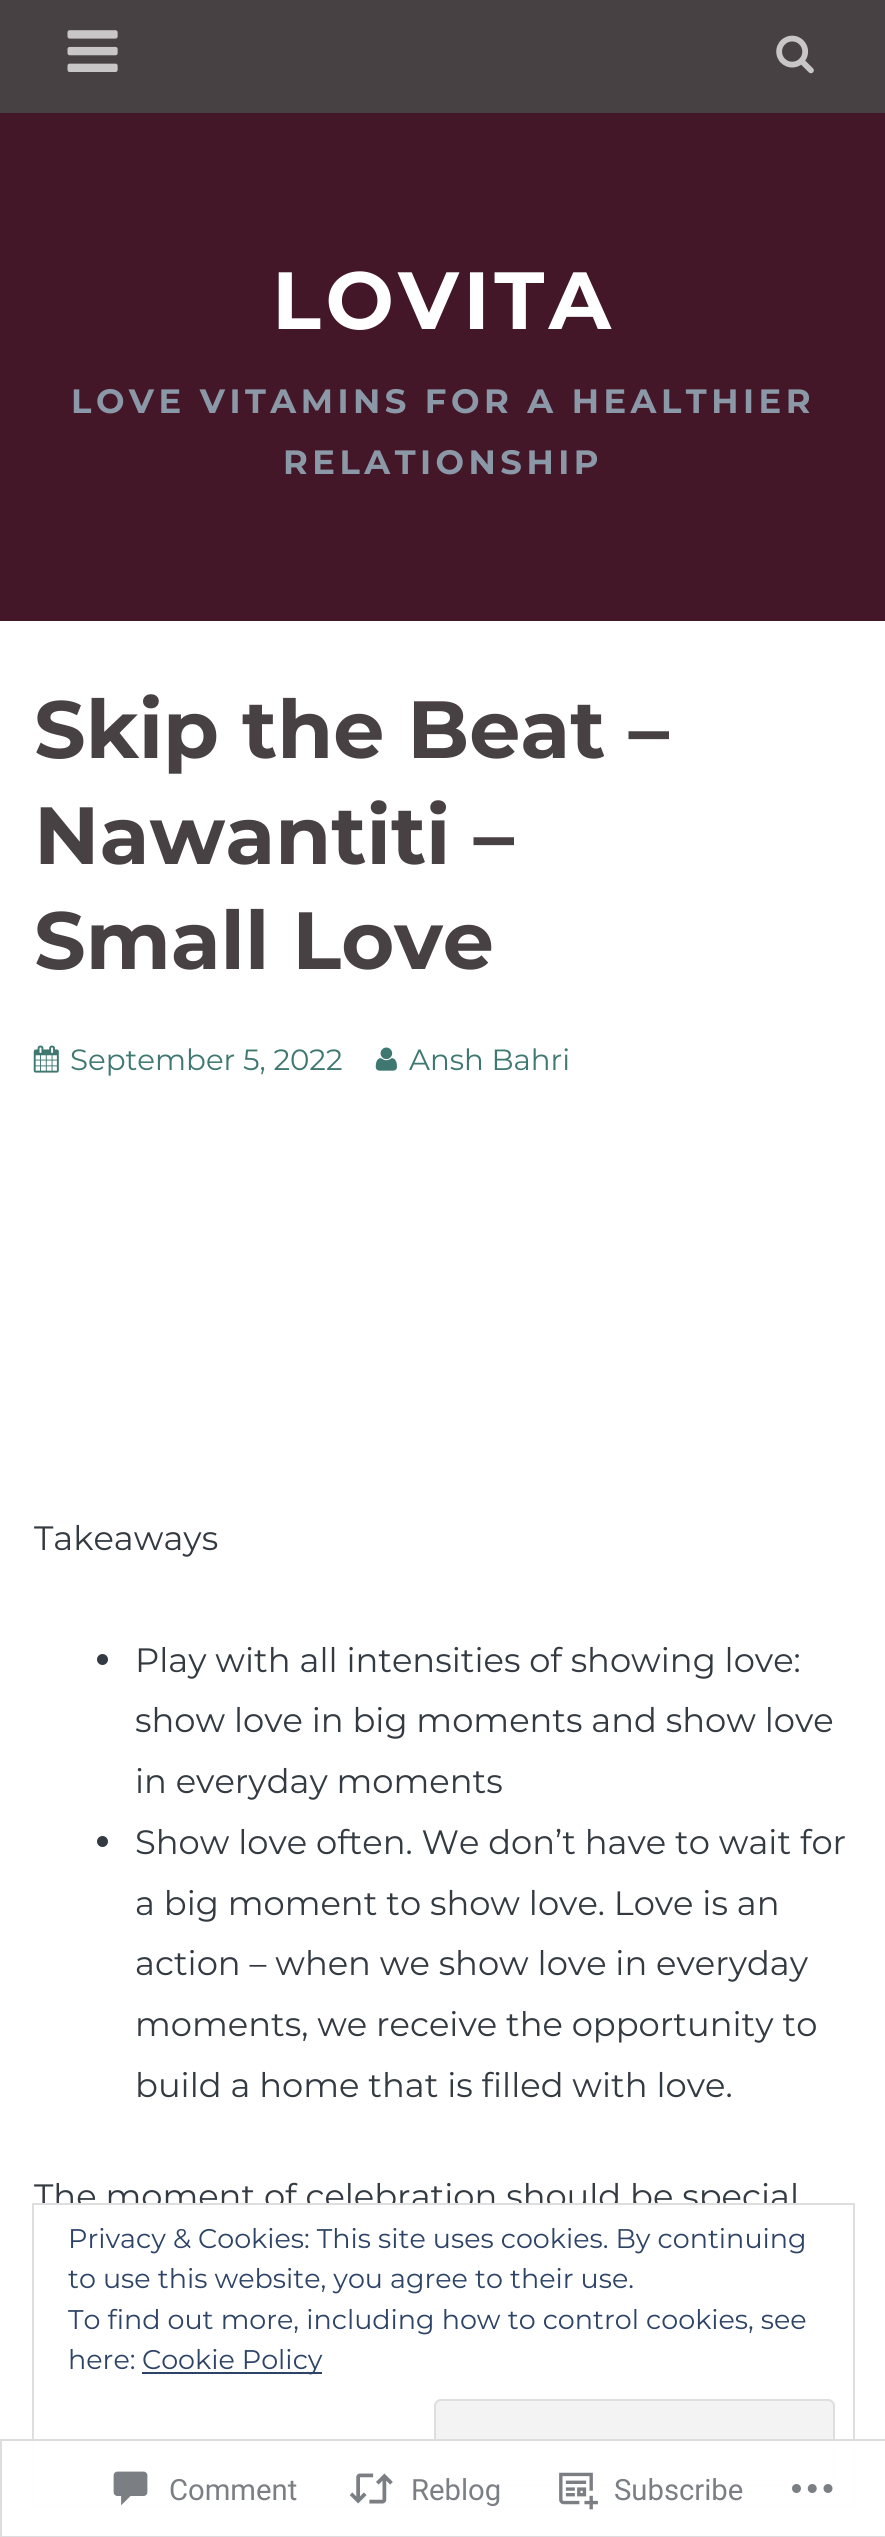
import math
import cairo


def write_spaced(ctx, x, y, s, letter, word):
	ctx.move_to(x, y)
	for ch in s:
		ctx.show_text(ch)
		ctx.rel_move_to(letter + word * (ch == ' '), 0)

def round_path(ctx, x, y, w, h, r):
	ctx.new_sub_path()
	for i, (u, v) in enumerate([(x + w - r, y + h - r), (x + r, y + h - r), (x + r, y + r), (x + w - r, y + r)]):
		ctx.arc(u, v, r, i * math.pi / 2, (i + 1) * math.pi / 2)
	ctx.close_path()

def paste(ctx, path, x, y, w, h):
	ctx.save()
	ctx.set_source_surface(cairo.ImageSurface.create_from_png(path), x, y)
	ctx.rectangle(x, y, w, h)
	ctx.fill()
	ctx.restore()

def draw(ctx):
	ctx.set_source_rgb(1, 1, 1)
	ctx.paint()
	ctx.set_source_rgb(0.282, 0.255, 0.267)
	ctx.rectangle(0, 0, 885, 113)
	ctx.fill()
	paste(ctx, 'media/1.png', 67, 30, 51, 42)
	paste(ctx, 'media/2.png', 776, 35, 38, 39)
	ctx.set_source_rgb(0.267, 0.09, 0.157)
	ctx.rectangle(0, 113, 885, 508)
	ctx.fill()
	ctx.select_font_face('Montserrat', cairo.FONT_SLANT_NORMAL, cairo.FONT_WEIGHT_BOLD)
	ctx.set_font_size(81)
	ctx.set_source_rgb(1, 1, 1)
	write_spaced(ctx, 272, 329, 'LOVITA', 4.5, 0)
	ctx.set_font_size(33.75)
	ctx.set_source_rgb(0.541, 0.596, 0.655)
	write_spaced(ctx, 71, 413, 'LOVE VITAMINS FOR A HEALTHIER', 4.5, 0)
	write_spaced(ctx, 283, 474, 'RELATIONSHIP', 4.5, 0)
	ctx.set_font_size(81)
	ctx.set_source_rgb(0.282, 0.255, 0.267)
	for x, y, s in [
		(34, 758, 'Skip the Beat –'),
		(34, 864, 'Nawantiti –'),
		(34, 969, 'Small Love'),
	]:
		ctx.move_to(x, y)
		ctx.show_text(s)
	paste(ctx, 'media/3.png', 33, 1045, 26, 28)
	ctx.select_font_face('Montserrat')
	ctx.set_font_size(29.25)
	ctx.set_source_rgb(0.247, 0.471, 0.443)
	ctx.move_to(70, 1070)
	ctx.show_text('September 5, 2022')
	paste(ctx, 'media/4.png', 375, 1047, 22, 24)
	ctx.move_to(409, 1070)
	ctx.show_text('Ansh Bahri')
	ctx.set_font_size(33.75)
	ctx.set_source_rgb(0.2, 0.227, 0.259)
	ctx.move_to(34, 1550)
	ctx.show_text('Takeaways')
	ctx.new_path()
	ctx.arc(102.5, 1659.5, 5.5, 0, 2 * math.pi)
	ctx.fill()
	for x, y, s in [
		(135, 1672, 'Play with all intensities of showing love:'),
		(135, 1732, 'show love in big moments and show love'),
		(135, 1793, 'in everyday moments'),
	]:
		ctx.move_to(x, y)
		ctx.show_text(s)
	ctx.new_path()
	ctx.arc(102.5, 1841.5, 5.5, 0, 2 * math.pi)
	ctx.fill()
	for x, y, s in [
		(135, 1854, 'Show love often. We don’t have to wait for'),
		(135, 1915, 'a big moment to show love. Love is an'),
		(135, 1975, 'action – when we show love in everyday'),
		(135, 2036, 'moments, we receive the opportunity to'),
		(135, 2097, 'build a home that is filled with love.'),
		(34, 2208, 'The moment of celebration should be special'),
	]:
		ctx.move_to(x, y)
		ctx.show_text(s)
	ctx.set_source_rgb(1, 1, 1)
	ctx.rectangle(42, 2205, 754, 10)
	ctx.fill()
	ctx.rectangle(33, 2204, 821, 302)
	ctx.set_source_rgb(0.871, 0.871, 0.871)
	ctx.stroke()
	ctx.set_font_size(27)
	ctx.set_source_rgb(0.18, 0.267, 0.404)
	for x, y, s in [
		(68, 2248, 'Privacy & Cookies: This site uses cookies. By continuing'),
		(68, 2288, 'to use this website, you agree to their use.'),
		(68, 2329, 'To find out more, including how to control cookies, see'),
		(68, 2369, 'here:'),
	]:
		ctx.move_to(x, y)
		ctx.show_text(s)
	ctx.rectangle(142, 2372, 180, 2)
	ctx.fill()
	ctx.move_to(142, 2369)
	ctx.show_text('Cookie Policy')
	ctx.set_source_rgb(0.953, 0.953, 0.953)
	round_path(ctx, 435, 2400, 399, 85, 6)
	ctx.fill_preserve()
	ctx.set_source_rgb(0.871, 0.871, 0.871)
	ctx.stroke()
	ctx.set_source_rgba(1, 1, 1, 0.98)
	ctx.rectangle(32, 2439, 823, 68)
	ctx.fill()
	ctx.rectangle(1, 2440, 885, 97)
	ctx.set_source_rgba(0.863, 0.863, 0.871, 0.98)
	ctx.stroke()
	paste(ctx, 'media/5.png', 113, 2471, 35, 35)
	ctx.select_font_face('Roboto')
	ctx.set_font_size(29.25)
	ctx.set_source_rgb(0.482, 0.498, 0.522)
	ctx.move_to(169, 2500)
	ctx.show_text('Comment')
	paste(ctx, 'media/6.png', 349, 2473, 44, 31)
	ctx.move_to(411, 2500)
	ctx.show_text('Reblog')
	paste(ctx, 'media/7.png', 559, 2472, 39, 38)
	ctx.move_to(614, 2500)
	ctx.show_text('Subscribe')
	paste(ctx, 'media/8.png', 792, 2484, 41, 9)


surface = cairo.ImageSurface(cairo.FORMAT_RGB24, 885, 2537)
ctx = cairo.Context(surface)
options = cairo.FontOptions()
options.set_hint_metrics(cairo.HINT_METRICS_OFF)
options.set_hint_style(cairo.HINT_STYLE_NONE)
ctx.set_font_options(options)
ctx.set_miter_limit(4)
draw(ctx)
surface.write_to_png('image.png')
